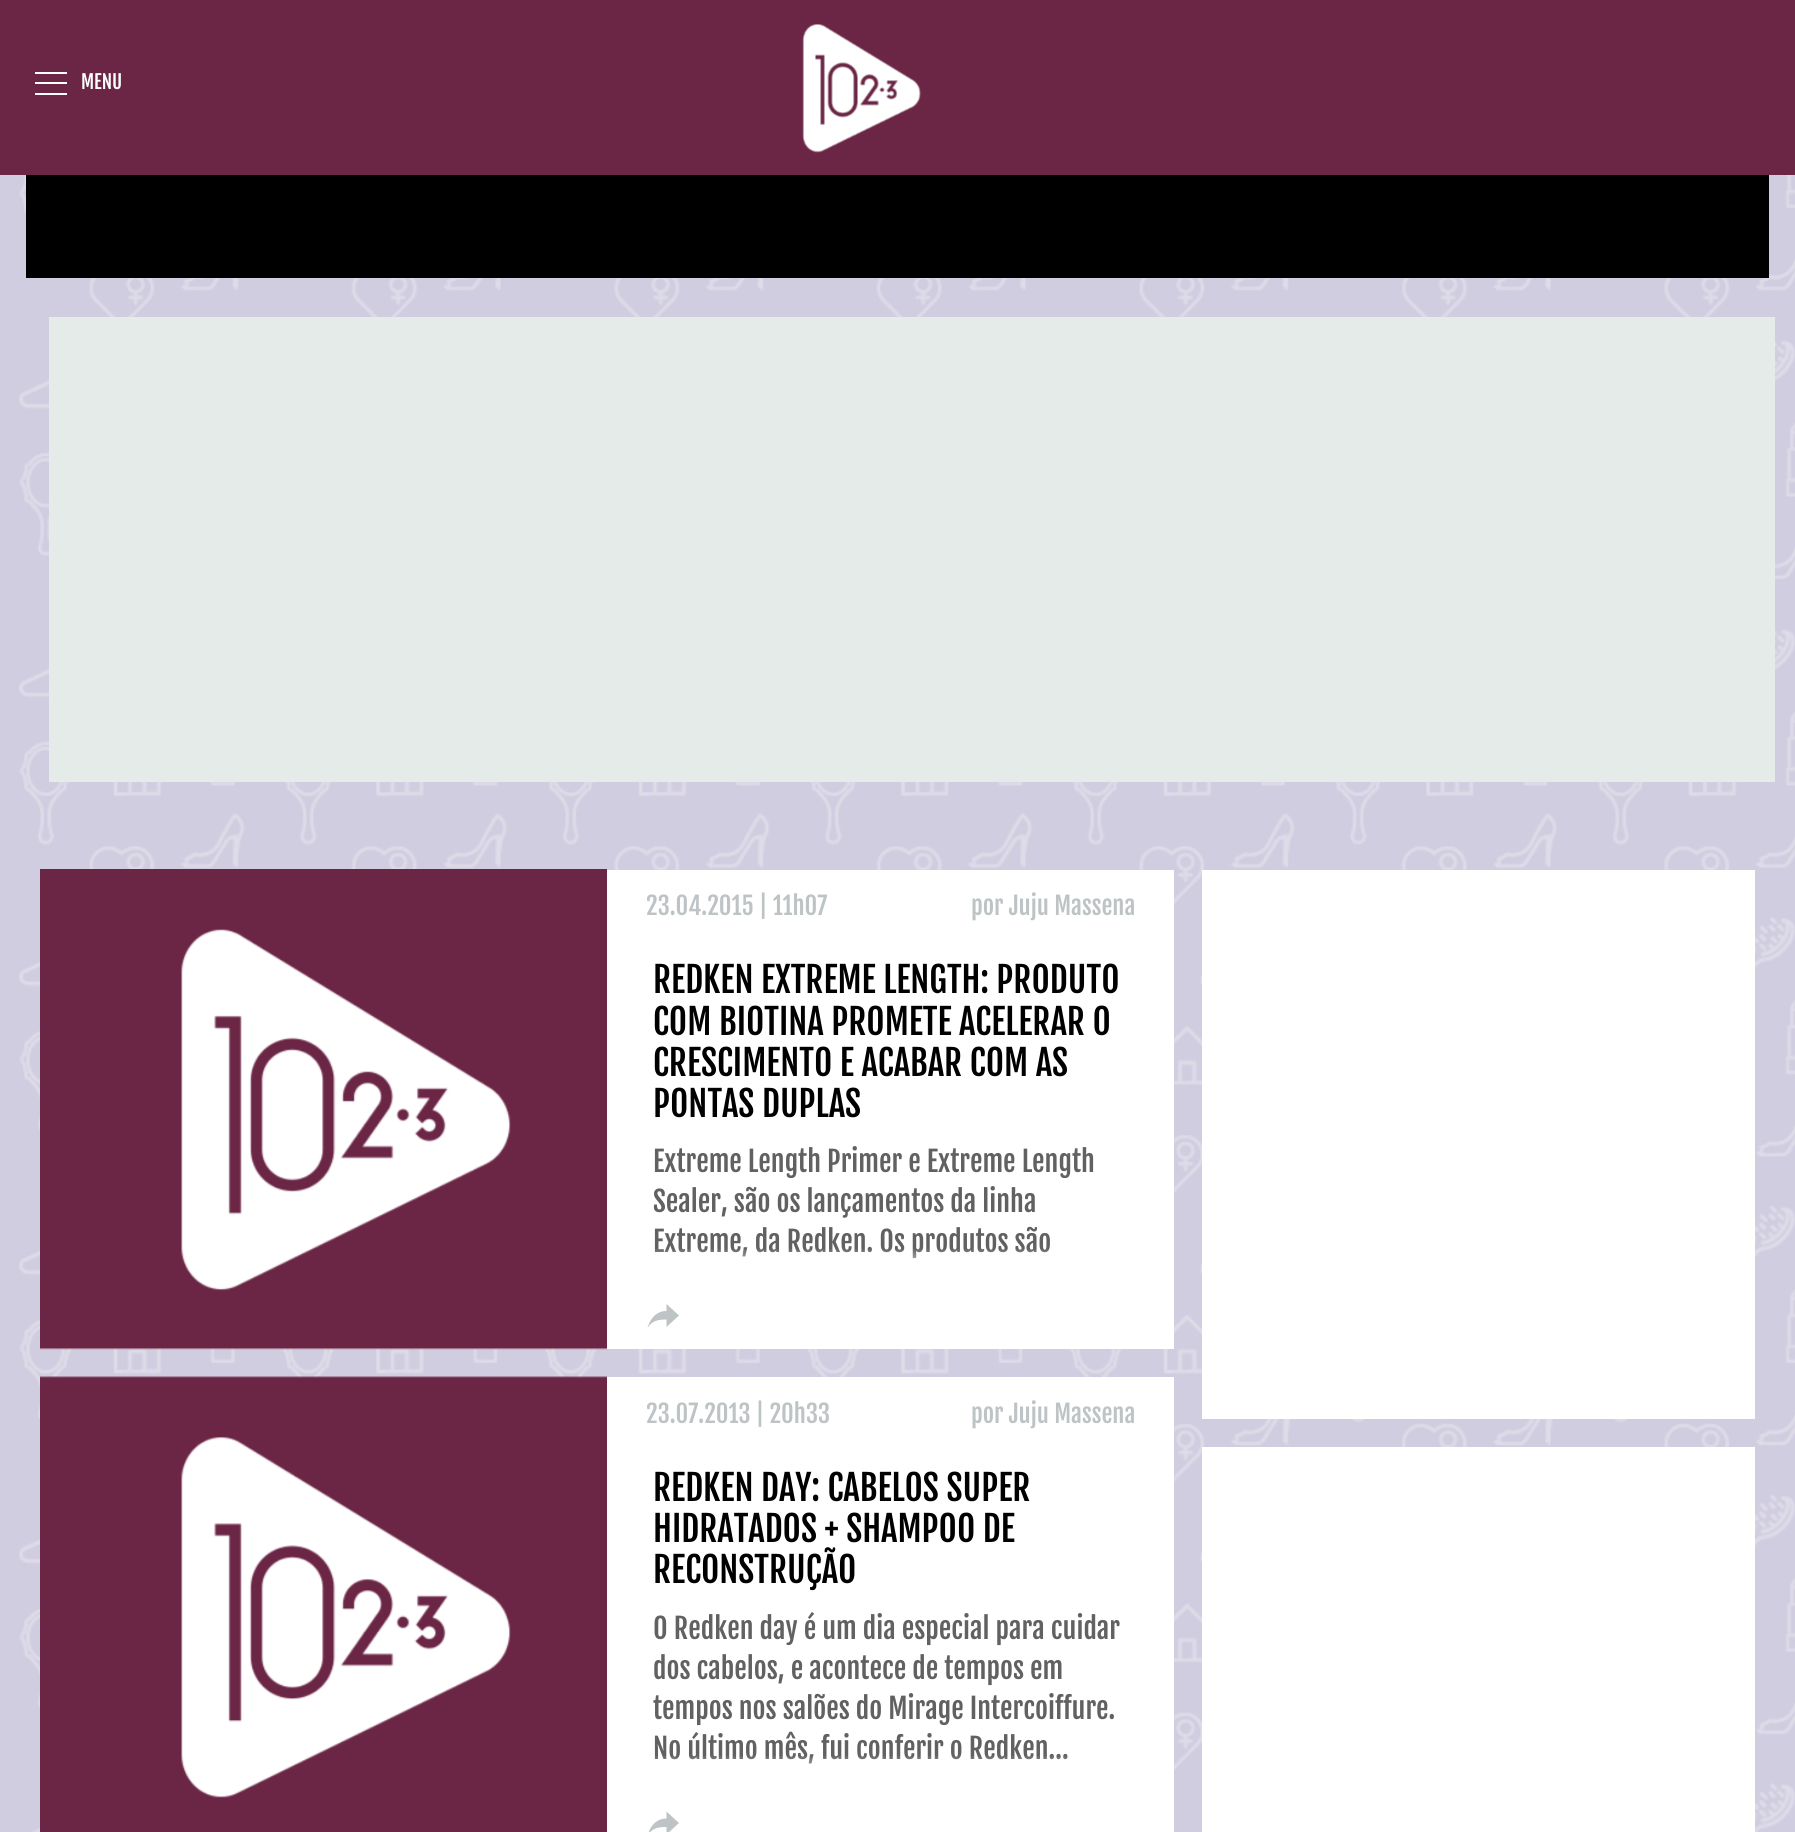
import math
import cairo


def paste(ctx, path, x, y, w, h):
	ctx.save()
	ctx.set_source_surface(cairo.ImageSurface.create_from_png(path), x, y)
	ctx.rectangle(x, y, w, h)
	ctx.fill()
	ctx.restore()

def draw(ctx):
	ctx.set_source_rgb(1, 1, 1)
	ctx.paint()
	paste(ctx, 'media/1.png', 0, 175, 1795, 1657)
	ctx.set_source_rgb(0.42, 0.149, 0.271)
	ctx.rectangle(0, 0, 1795, 175)
	ctx.fill()
	ctx.set_source_rgb(1, 1, 1)
	ctx.rectangle(35, 72, 32, 2)
	ctx.rectangle(35, 82, 32, 2)
	ctx.rectangle(35, 93, 32, 2)
	ctx.fill()
	ctx.select_font_face('Fjalla One')
	ctx.set_font_size(19)
	ctx.move_to(81, 89)
	ctx.show_text('MENU')
	paste(ctx, 'media/2.png', 802, 24, 119, 129)
	ctx.set_source_rgb(0, 0, 0)
	ctx.rectangle(26, 175, 1743, 103)
	ctx.fill()
	ctx.set_source_rgb(0.898, 0.918, 0.914)
	ctx.rectangle(49, 317, 1726, 465)
	ctx.fill()
	ctx.set_source_rgb(1, 1, 1)
	ctx.rectangle(40, 870, 1134, 479)
	ctx.fill()
	paste(ctx, 'media/3.png', 40, 869, 567, 481)
	ctx.set_font_size(24.5)
	ctx.set_source_rgb(0.745, 0.765, 0.773)
	ctx.move_to(646, 915)
	ctx.show_text('23.04.2015 | 11h07')
	ctx.move_to(971, 915)
	ctx.show_text('por Juju Massena')
	ctx.set_font_size(35)
	ctx.set_source_rgb(0, 0, 0)
	for x, y, s in [
		(653, 993, 'REDKEN EXTREME LENGTH: PRODUTO'),
		(653, 1035, 'COM BIOTINA PROMETE ACELERAR O'),
		(653, 1076, 'CRESCIMENTO E ACABAR COM AS'),
		(653, 1117, 'PONTAS DUPLAS'),
	]:
		ctx.move_to(x, y)
		ctx.show_text(s)
	ctx.set_font_size(28)
	ctx.set_source_rgb(0.38, 0.38, 0.38)
	for x, y, s in [
		(653, 1172, 'Extreme Length Primer e Extreme Length'),
		(653, 1212, 'Sealer, são os lançamentos da linha'),
		(653, 1252, 'Extreme, da Redken. Os produtos são'),
	]:
		ctx.move_to(x, y)
		ctx.show_text(s)
	gradient = cairo.LinearGradient(891, 1248, 891, 1276)
	gradient.add_color_stop_rgba(0, 1, 1, 1, 0)
	gradient.add_color_stop_rgba(1, 1, 1, 1, 1)
	ctx.set_source(gradient)
	ctx.rectangle(654, 1249, 395, 10)
	ctx.fill()
	ctx.set_source_rgb(0.745, 0.765, 0.773)
	ctx.new_path()
	ctx.move_to(666.5, 1319.5)
	ctx.line_to(666.5, 1327)
	ctx.line_to(679, 1315.5)
	ctx.line_to(666.5, 1304)
	ctx.line_to(666.5, 1311)
	ctx.curve_to(656, 1311, 650, 1319, 647.5, 1328)
	ctx.curve_to(652, 1320.5, 658.5, 1319.5, 666.5, 1319.5)
	ctx.close_path()
	ctx.fill()
	ctx.set_source_rgb(1, 1, 1)
	ctx.rectangle(40, 1377, 1134, 455)
	ctx.fill()
	paste(ctx, 'media/4.png', 40, 1376, 567, 456)
	ctx.set_font_size(24.5)
	ctx.set_source_rgb(0.745, 0.765, 0.773)
	ctx.move_to(646, 1423)
	ctx.show_text('23.07.2013 | 20h33')
	ctx.move_to(971, 1423)
	ctx.show_text('por Juju Massena')
	ctx.set_font_size(35)
	ctx.set_source_rgb(0, 0, 0)
	for x, y, s in [
		(653, 1501, 'REDKEN DAY: CABELOS SUPER'),
		(653, 1542, 'HIDRATADOS + SHAMPOO DE'),
		(653, 1583, 'RECONSTRUÇÃO'),
	]:
		ctx.move_to(x, y)
		ctx.show_text(s)
	ctx.set_font_size(28)
	ctx.set_source_rgb(0.38, 0.38, 0.38)
	for x, y, s in [
		(653, 1639, 'O Redken day é um dia especial para cuidar'),
		(653, 1679, 'dos cabelos, e acontece de tempos em'),
		(653, 1719, 'tempos nos salões do Mirage Intercoiffure.'),
		(653, 1759, 'No último mês, fui conferir o Redken...'),
	]:
		ctx.move_to(x, y)
		ctx.show_text(s)
	gradient = cairo.LinearGradient(891, 1755, 891, 1783)
	gradient.add_color_stop_rgba(0, 1, 1, 1, 0)
	gradient.add_color_stop_rgba(1, 1, 1, 1, 1)
	ctx.set_source(gradient)
	ctx.rectangle(654, 1756, 413, 8)
	ctx.fill()
	ctx.set_source_rgb(0.745, 0.765, 0.773)
	ctx.new_path()
	ctx.move_to(666.5, 1827)
	ctx.line_to(666.5, 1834.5)
	ctx.line_to(679, 1823)
	ctx.line_to(666.5, 1811.5)
	ctx.line_to(666.5, 1818.5)
	ctx.curve_to(656, 1818.5, 650, 1826.5, 647.5, 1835.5)
	ctx.curve_to(652, 1828, 658.5, 1827, 666.5, 1827)
	ctx.close_path()
	ctx.fill()
	ctx.set_source_rgb(1, 1, 1)
	ctx.rectangle(1202, 870, 553, 549)
	ctx.fill()
	ctx.rectangle(1202, 1447, 553, 385)
	ctx.fill()


surface = cairo.ImageSurface(cairo.FORMAT_RGB24, 1795, 1832)
ctx = cairo.Context(surface)
options = cairo.FontOptions()
options.set_hint_metrics(cairo.HINT_METRICS_OFF)
options.set_hint_style(cairo.HINT_STYLE_NONE)
ctx.set_font_options(options)
ctx.set_miter_limit(4)
draw(ctx)
surface.write_to_png('image.png')
